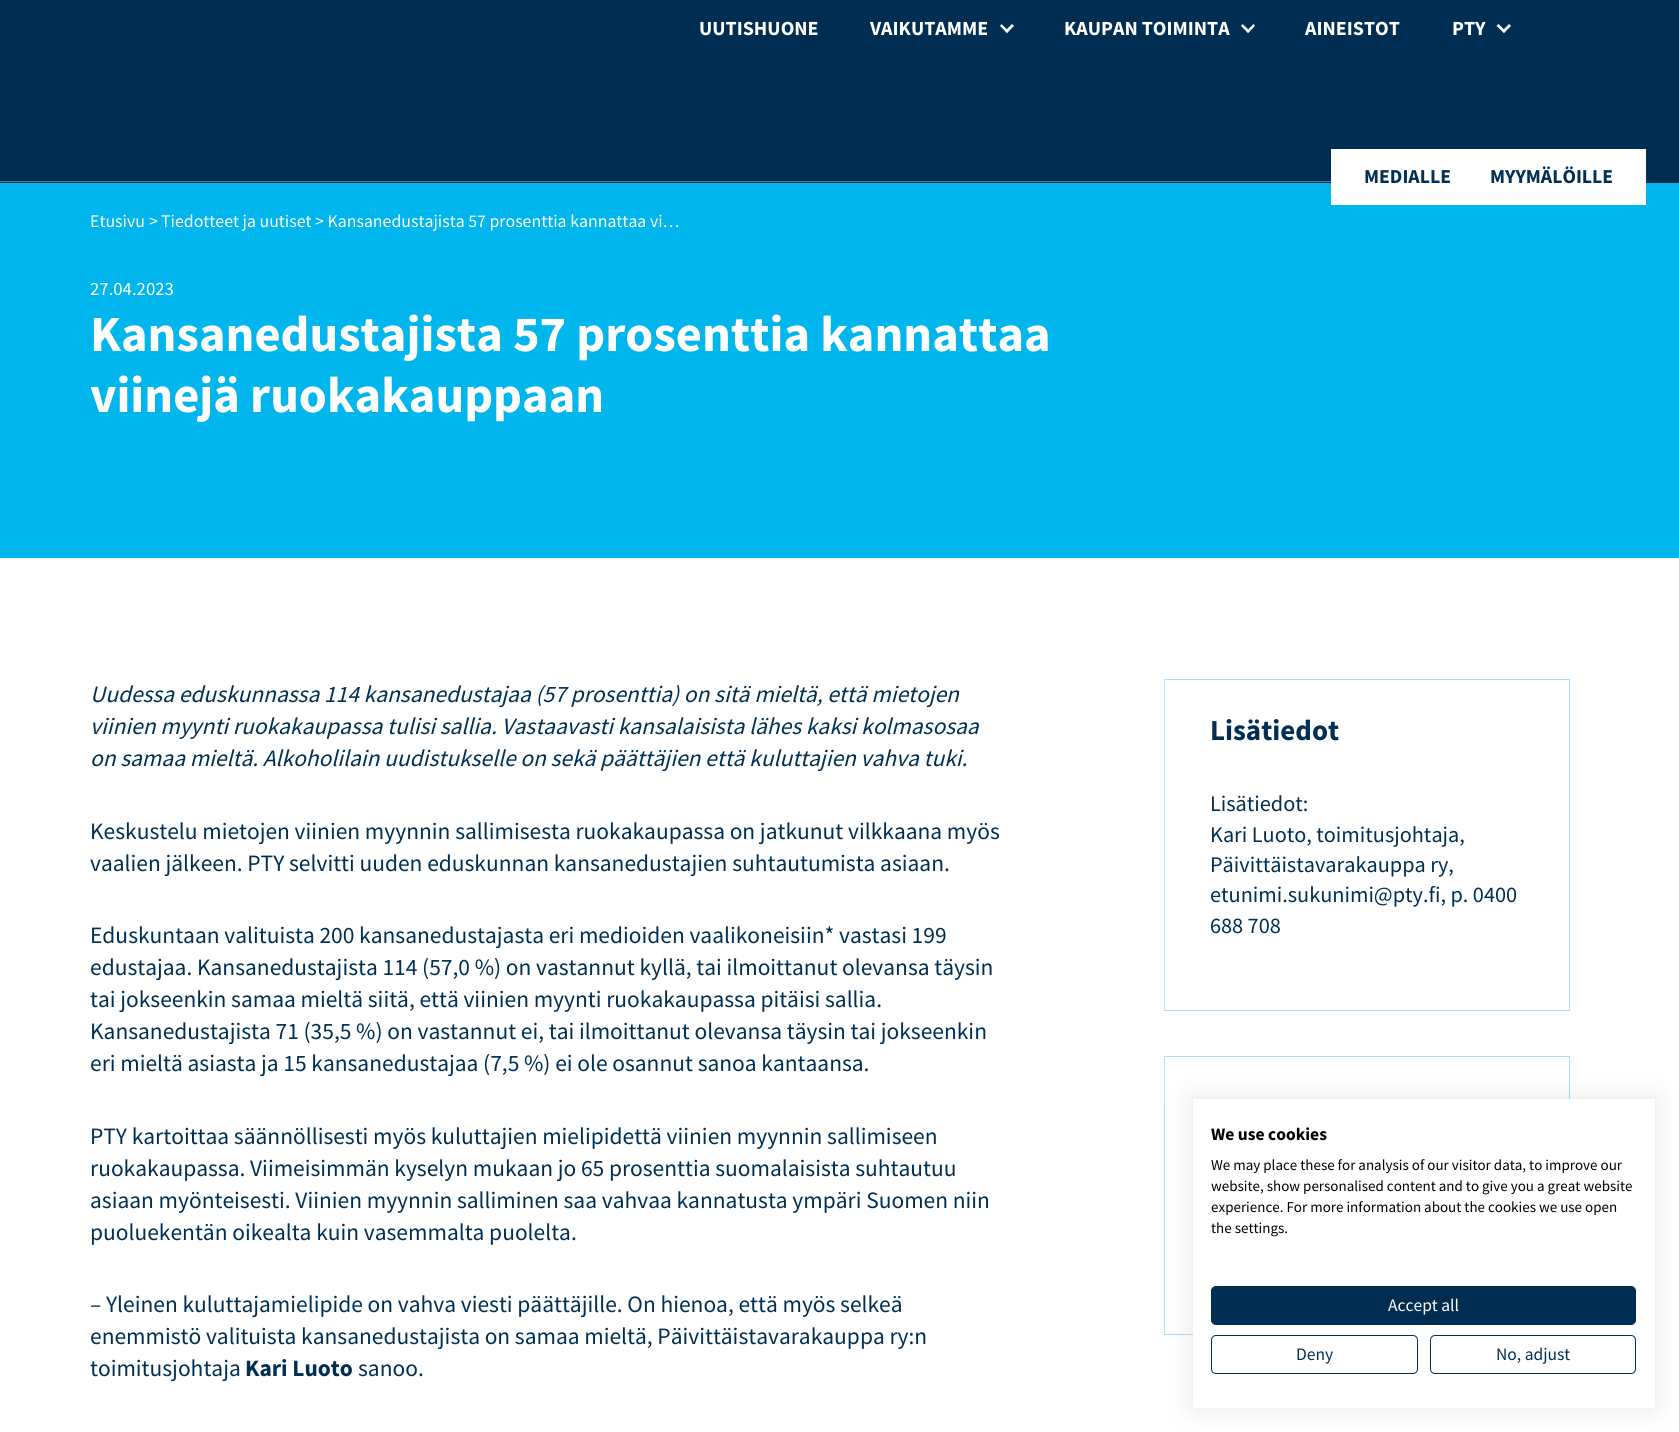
import math
import cairo


def round_path(ctx, x, y, w, h, r):
	ctx.new_sub_path()
	for i, (u, v) in enumerate([(x + w - r, y + h - r), (x + r, y + h - r), (x + r, y + r), (x + w - r, y + r)]):
		ctx.arc(u, v, r, i * math.pi / 2, (i + 1) * math.pi / 2)
	ctx.close_path()

def blur_box(ctx, x, y, w, h, r, blur, alpha):
	ctx.push_group_with_content(cairo.CONTENT_ALPHA)
	ctx.set_operator(cairo.OPERATOR_SOURCE)
	for i in range(15, -16, -2):
		e = blur * i / 6
		if min(w, h) + 2 * e > 0:
			ctx.set_source_rgba(0, 0, 0, alpha * math.erfc((i - 1) / 8.5) / 2)
			round_path(ctx, x - e, y - e, w + 2 * e, h + 2 * e, max(0, min(r + e + blur * .6, min(w, h) / 2 + e)))
			ctx.fill()
	ctx.mask(ctx.pop_group())

def draw(ctx):
	ctx.set_source_rgb(1, 1, 1)
	ctx.paint()
	ctx.set_source_rgb(0, 0.18, 0.322)
	ctx.rectangle(0, 0, 1679, 183)
	ctx.fill()
	ctx.select_font_face('Source Sans Pro', cairo.FONT_SLANT_NORMAL, cairo.FONT_WEIGHT_BOLD)
	ctx.set_font_size(20)
	ctx.set_source_rgb(1, 1, 1)
	ctx.move_to(699, 35)
	ctx.show_text('UUTISHUONE')
	ctx.move_to(870, 35)
	ctx.show_text('VAIKUTAMME')
	ctx.new_path()
	ctx.move_to(1007, 33)
	ctx.line_to(1000, 26)
	ctx.line_to(1001.5, 24)
	ctx.line_to(1008.5, 31)
	ctx.close_path()
	ctx.fill()
	ctx.new_path()
	ctx.move_to(1007, 33)
	ctx.line_to(1005, 31)
	ctx.line_to(1012, 24)
	ctx.line_to(1014, 26)
	ctx.close_path()
	ctx.fill()
	ctx.move_to(1064, 35)
	ctx.show_text('KAUPAN TOIMINTA')
	ctx.new_path()
	ctx.move_to(1248, 33)
	ctx.line_to(1241, 26)
	ctx.line_to(1242.5, 24)
	ctx.line_to(1250, 31)
	ctx.close_path()
	ctx.fill()
	ctx.new_path()
	ctx.move_to(1248, 33)
	ctx.line_to(1246.5, 31)
	ctx.line_to(1253.5, 24)
	ctx.line_to(1255, 26)
	ctx.close_path()
	ctx.fill()
	ctx.move_to(1305, 35)
	ctx.show_text('AINEISTOT')
	ctx.move_to(1452, 35)
	ctx.show_text('PTY')
	ctx.new_path()
	ctx.move_to(1504, 33)
	ctx.line_to(1496.5, 26)
	ctx.line_to(1498.5, 24)
	ctx.line_to(1505.5, 31)
	ctx.close_path()
	ctx.fill()
	ctx.new_path()
	ctx.move_to(1504, 33)
	ctx.line_to(1502, 31)
	ctx.line_to(1509, 24)
	ctx.line_to(1511, 26)
	ctx.close_path()
	ctx.fill()
	ctx.set_source_rgb(0.341, 0.478, 0.561)
	ctx.rectangle(0, 181, 1331, 1)
	ctx.fill()
	ctx.set_source_rgb(0.004, 0.714, 0.929)
	ctx.rectangle(0, 183, 1679, 375)
	ctx.fill()
	ctx.set_source_rgb(1, 1, 1)
	ctx.rectangle(1331, 149, 315, 56)
	ctx.fill()
	ctx.set_font_size(19.75)
	ctx.set_source_rgb(0, 0.184, 0.325)
	ctx.move_to(1364, 183)
	ctx.show_text('MEDIALLE')
	ctx.move_to(1490, 183)
	ctx.show_text('MYYMÄLÖILLE')
	ctx.select_font_face('Source Sans Pro')
	ctx.set_font_size(17.8)
	ctx.set_source_rgb(1, 1, 1)
	ctx.move_to(90, 227)
	ctx.show_text('Etusivu')
	ctx.move_to(149, 227)
	ctx.show_text('>')
	ctx.save()
	ctx.rectangle(161, 206, 150, 30)
	ctx.clip()
	ctx.move_to(161, 227)
	ctx.show_text('Tiedotteet ja uutiset')
	ctx.restore()
	ctx.move_to(315, 227)
	ctx.show_text('> Kansanedustajista 57 prosenttia kannattaa vi…')
	ctx.set_font_size(18.75)
	ctx.move_to(90, 295)
	ctx.show_text('27.04.2023')
	ctx.select_font_face('Source Sans Pro', cairo.FONT_SLANT_NORMAL, cairo.FONT_WEIGHT_BOLD)
	ctx.set_font_size(50.5)
	ctx.move_to(90, 351)
	ctx.show_text('Kansanedustajista 57 prosenttia kannattaa')
	ctx.move_to(90, 412)
	ctx.show_text('viinejä ruokakauppaan')
	ctx.select_font_face('Source Sans Pro', cairo.FONT_SLANT_ITALIC)
	ctx.set_font_size(23.45)
	ctx.set_source_rgb(0, 0.184, 0.325)
	for x, y, s in [
		(90, 702, 'Uudessa eduskunnassa 114 kansanedustajaa (57 prosenttia) on sitä mieltä, että mietojen'),
		(90, 734, 'viinien myynti ruokakaupassa tulisi sallia. Vastaavasti kansalaisista lähes kaksi kolmasosaa'),
		(90, 766, 'on samaa mieltä. Alkoholilain uudistukselle on sekä päättäjien että kuluttajien vahva tuki.'),
	]:
		ctx.move_to(x, y)
		ctx.show_text(s)
	ctx.select_font_face('Source Sans Pro')
	for x, y, s in [
		(90, 839, 'Keskustelu mietojen viinien myynnin sallimisesta ruokakaupassa on jatkunut vilkkaana myös'),
		(90, 871, 'vaalien jälkeen. PTY selvitti uuden eduskunnan kansanedustajien suhtautumista asiaan.'),
		(90, 943, 'Eduskuntaan valituista 200 kansanedustajasta eri medioiden vaalikoneisiin* vastasi 199'),
		(90, 975, 'edustajaa. Kansanedustajista 114 (57,0 %) on vastannut kyllä, tai ilmoittanut olevansa täysin'),
		(90, 1007, 'tai jokseenkin samaa mieltä siitä, että viinien myynti ruokakaupassa pitäisi sallia.'),
		(90, 1039, 'Kansanedustajista 71 (35,5 %) on vastannut ei, tai ilmoittanut olevansa täysin tai jokseenkin'),
		(90, 1071, 'eri mieltä asiasta ja 15 kansanedustajaa (7,5 %) ei ole osannut sanoa kantaansa.'),
		(90, 1144, 'PTY kartoittaa säännöllisesti myös kuluttajien mielipidettä viinien myynnin sallimiseen'),
		(90, 1176, 'ruokakaupassa. Viimeisimmän kyselyn mukaan jo 65 prosenttia suomalaisista suhtautuu'),
		(90, 1208, 'asiaan myönteisesti. Viinien myynnin salliminen saa vahvaa kannatusta ympäri Suomen niin'),
		(90, 1240, 'puoluekentän oikealta kuin vasemmalta puolelta.'),
		(90, 1312, '– Yleinen kuluttajamielipide on vahva viesti päättäjille. On hienoa, että myös selkeä'),
		(90, 1344, 'enemmistö valituista kansanedustajista on samaa mieltä, Päivittäistavarakauppa ry:n'),
		(90, 1376, 'toimitusjohtaja'),
	]:
		ctx.move_to(x, y)
		ctx.show_text(s)
	ctx.select_font_face('Source Sans Pro', cairo.FONT_SLANT_NORMAL, cairo.FONT_WEIGHT_BOLD)
	ctx.move_to(245, 1376)
	ctx.show_text('Kari Luoto')
	ctx.select_font_face('Source Sans Pro')
	ctx.move_to(358, 1376)
	ctx.show_text('sanoo.')
	ctx.rectangle(1164.5, 679.5, 405, 331)
	ctx.set_source_rgb(0.671, 0.882, 0.965)
	ctx.set_line_width(1)
	ctx.stroke()
	ctx.select_font_face('Source Sans Pro', cairo.FONT_SLANT_NORMAL, cairo.FONT_WEIGHT_BOLD)
	ctx.set_font_size(29)
	ctx.set_source_rgb(0, 0.184, 0.325)
	ctx.move_to(1210, 740)
	ctx.show_text('Lisätiedot')
	ctx.select_font_face('Source Sans Pro')
	ctx.set_font_size(22.25)
	for x, y, s in [
		(1210, 811, 'Lisätiedot:'),
		(1210, 842, 'Kari Luoto, toimitusjohtaja,'),
		(1210, 872, 'Päivittäistavarakauppa ry,'),
		(1210, 902, 'etunimi.sukunimi@pty.fi, p. 0400'),
		(1210, 933, '688 708'),
	]:
		ctx.move_to(x, y)
		ctx.show_text(s)
	ctx.rectangle(1164.5, 1056.5, 405, 278)
	ctx.set_source_rgb(0.671, 0.882, 0.965)
	ctx.stroke()
	ctx.set_source_rgb(0, 0, 0)
	blur_box(ctx, 1193, 1099, 462, 309, 0, 15, 0.1)
	ctx.set_source_rgb(1, 1, 1)
	ctx.rectangle(1193, 1099, 462, 309)
	ctx.fill()
	ctx.select_font_face('Source Sans Pro', cairo.FONT_SLANT_NORMAL, cairo.FONT_WEIGHT_BOLD)
	ctx.set_font_size(17.5)
	ctx.set_source_rgb(0, 0, 0)
	ctx.move_to(1211, 1140)
	ctx.show_text('We use cookies')
	ctx.select_font_face('Source Sans Pro')
	ctx.set_font_size(15)
	for x, y, s in [
		(1211, 1170, 'We may place these for analysis of our visitor data, to improve our'),
		(1211, 1191, 'website, show personalised content and to give you a great website'),
		(1211, 1212, 'experience. For more information about the cookies we use open'),
		(1211, 1233, 'the settings.'),
	]:
		ctx.move_to(x, y)
		ctx.show_text(s)
	ctx.set_source_rgb(0, 0.18, 0.322)
	round_path(ctx, 1211.5, 1286.5, 424, 38, 4.5)
	ctx.fill_preserve()
	ctx.stroke()
	ctx.set_font_size(17.5)
	ctx.set_source_rgb(1, 1, 1)
	ctx.move_to(1388, 1311)
	ctx.show_text('Accept all')
	round_path(ctx, 1211.5, 1335.5, 206, 38, 4.5)
	ctx.set_source_rgb(0, 0.18, 0.322)
	ctx.stroke()
	ctx.set_source_rgb(0, 0.184, 0.325)
	ctx.move_to(1296, 1360)
	ctx.show_text('Deny')
	round_path(ctx, 1430.5, 1335.5, 205, 38, 4.5)
	ctx.set_source_rgb(0, 0.18, 0.322)
	ctx.stroke()
	ctx.set_source_rgb(0, 0.184, 0.325)
	ctx.move_to(1496, 1360)
	ctx.show_text('No, adjust')


surface = cairo.ImageSurface(cairo.FORMAT_RGB24, 1679, 1432)
ctx = cairo.Context(surface)
options = cairo.FontOptions()
options.set_hint_metrics(cairo.HINT_METRICS_OFF)
options.set_hint_style(cairo.HINT_STYLE_NONE)
ctx.set_font_options(options)
ctx.set_miter_limit(4)
draw(ctx)
surface.write_to_png('image.png')
